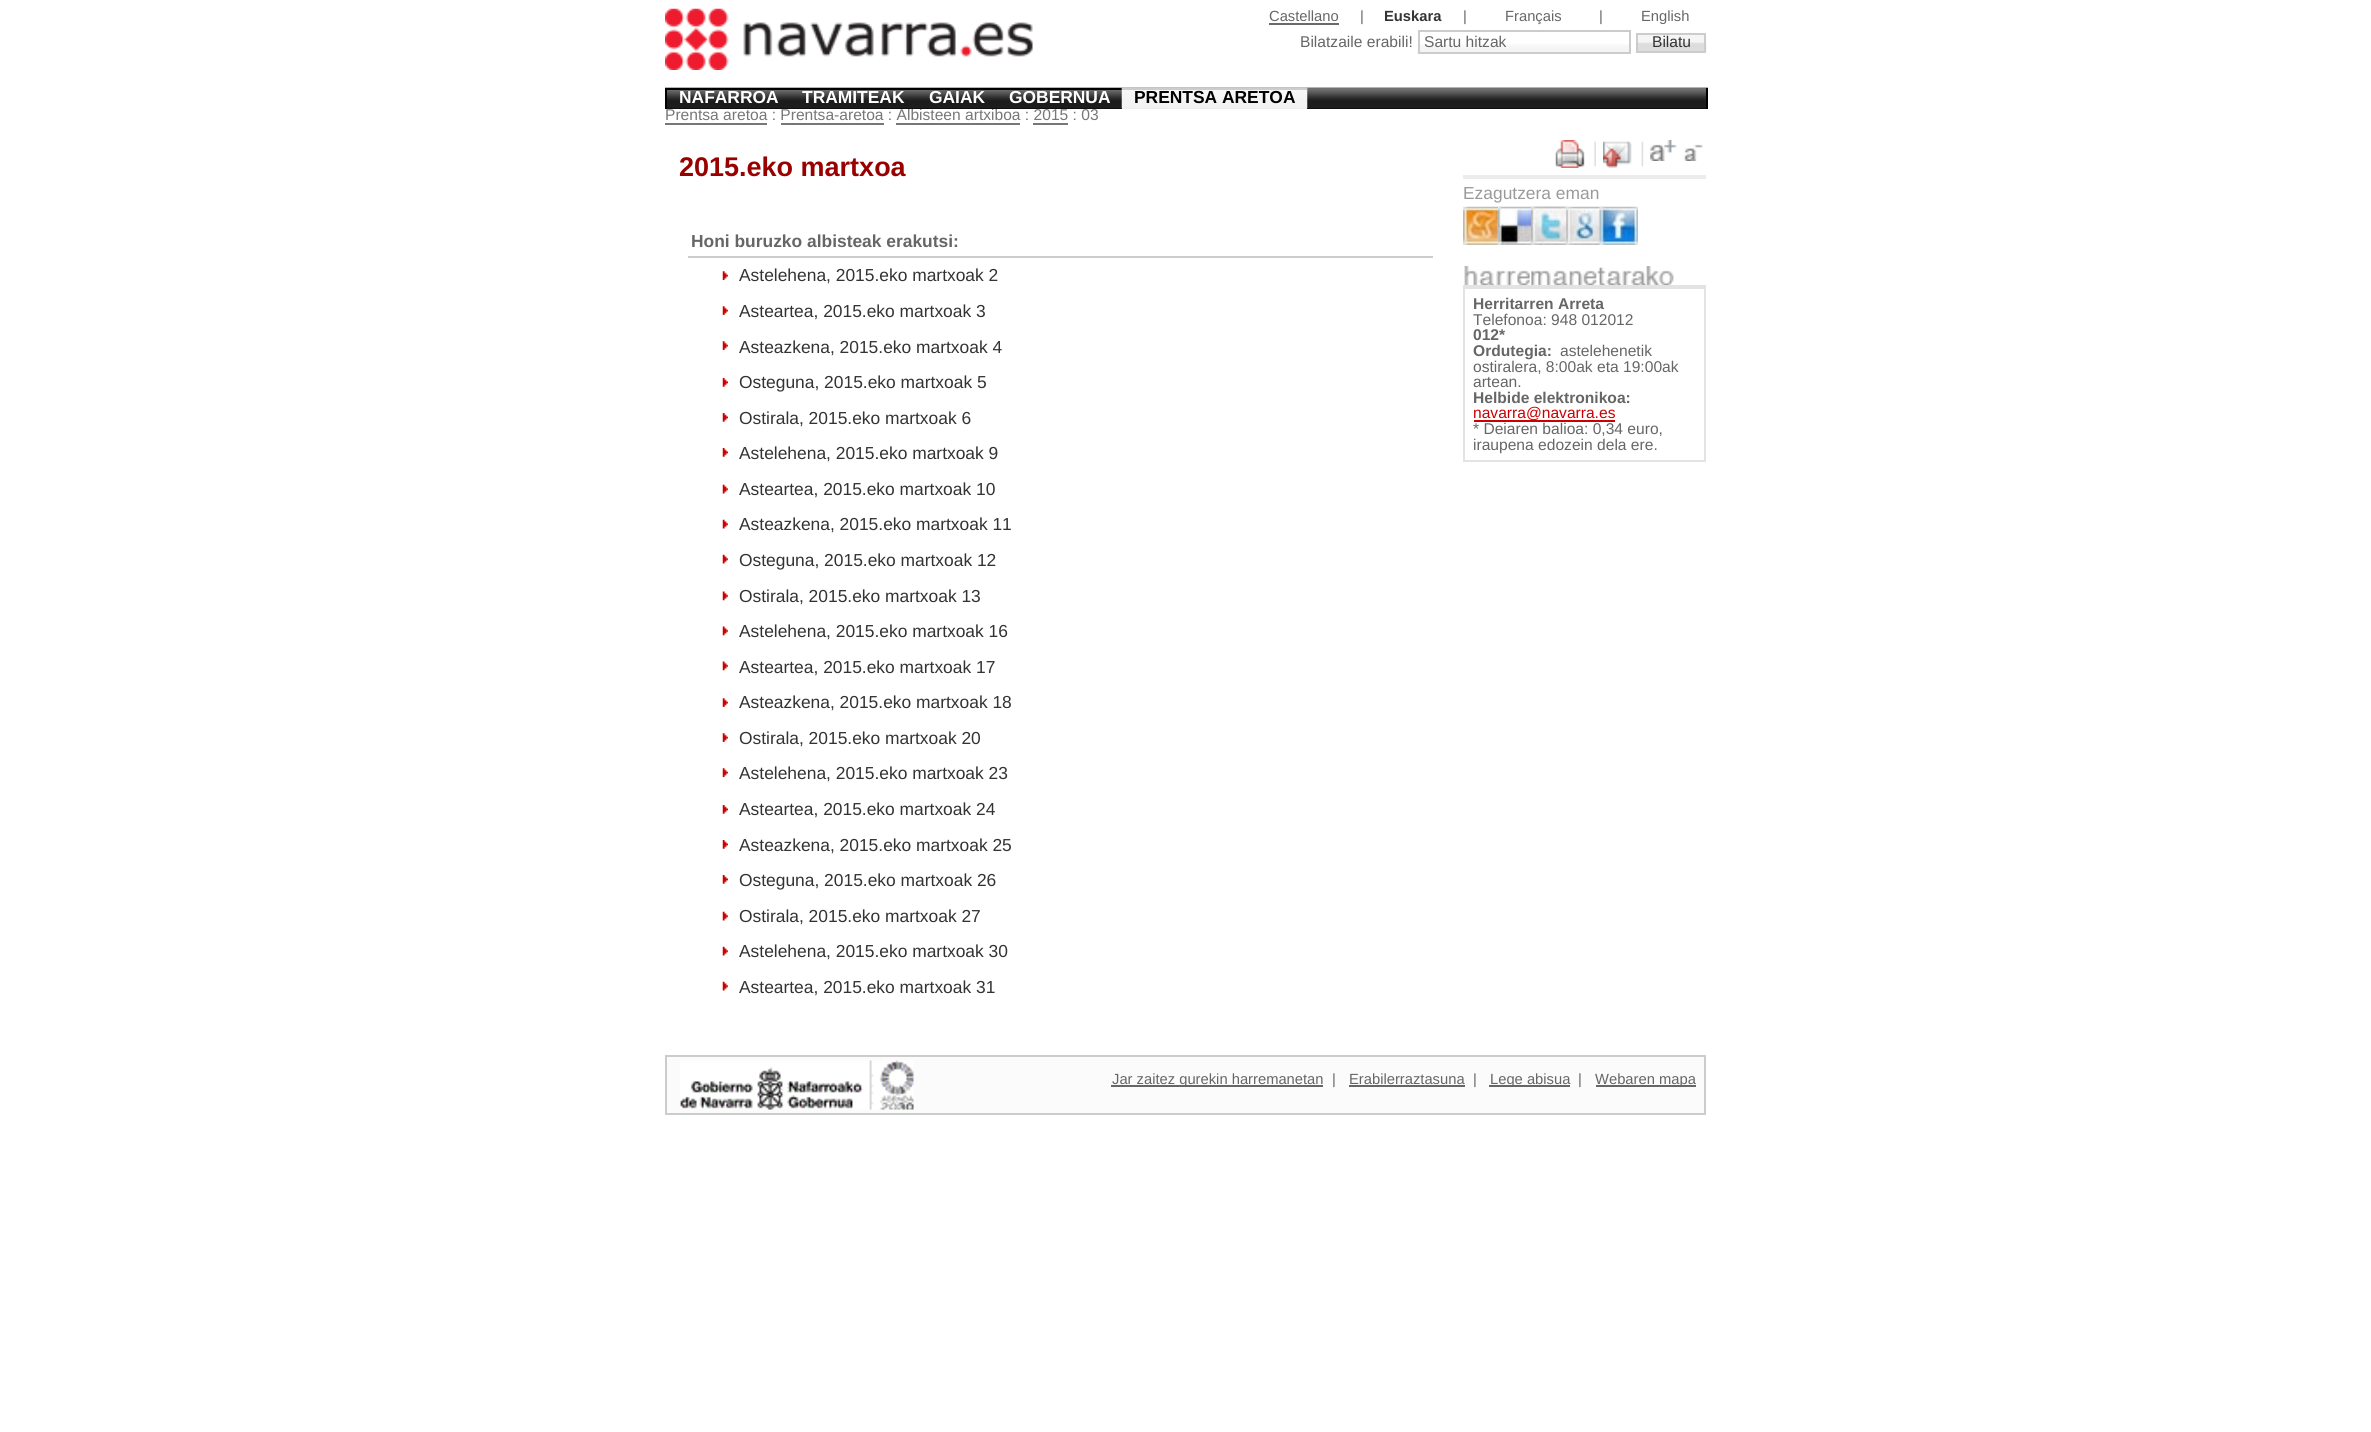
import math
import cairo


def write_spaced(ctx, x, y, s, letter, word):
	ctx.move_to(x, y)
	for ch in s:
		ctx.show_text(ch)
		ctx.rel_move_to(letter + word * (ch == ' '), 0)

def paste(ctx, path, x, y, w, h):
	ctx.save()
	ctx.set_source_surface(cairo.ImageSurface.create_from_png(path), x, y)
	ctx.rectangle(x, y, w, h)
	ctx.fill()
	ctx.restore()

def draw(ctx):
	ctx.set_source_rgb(1, 1, 1)
	ctx.paint()
	paste(ctx, 'media/1.png', 665, 8, 368, 62)
	ctx.select_font_face('Liberation Sans')
	ctx.set_font_size(14.75)
	ctx.set_source_rgb(0.4, 0.4, 0.4)
	ctx.move_to(1269, 21)
	ctx.show_text('Castellano')
	ctx.set_source_rgb(0.416, 0.416, 0.416)
	ctx.rectangle(1269, 23, 70, 2)
	ctx.fill()
	ctx.set_source_rgb(0.4, 0.4, 0.4)
	ctx.move_to(1360, 21)
	ctx.show_text('|')
	ctx.select_font_face('Liberation Sans', cairo.FONT_SLANT_NORMAL, cairo.FONT_WEIGHT_BOLD)
	ctx.set_source_rgb(0.2, 0.2, 0.2)
	ctx.move_to(1384, 21)
	ctx.show_text('Euskara')
	ctx.select_font_face('Liberation Sans')
	ctx.set_source_rgb(0.4, 0.4, 0.4)
	for x, y, s in [
		(1463, 21, '|'),
		(1505, 21, 'Français'),
		(1599, 21, '|'),
		(1641, 21, 'English'),
	]:
		ctx.move_to(x, y)
		ctx.show_text(s)
	ctx.set_font_size(15.6)
	ctx.move_to(1300, 47)
	ctx.show_text('Bilatzaile erabili!')
	paste(ctx, 'media/2.png', 1417, 44, 212, 10)
	ctx.rectangle(1419, 31, 211, 22)
	ctx.set_source_rgb(0.8, 0.8, 0.8)
	ctx.stroke()
	ctx.set_source_rgb(0.4, 0.4, 0.4)
	ctx.move_to(1424, 47)
	ctx.show_text('Sartu hitzak')
	paste(ctx, 'media/3.png', 1638, 33, 69, 20)
	ctx.rectangle(1637, 34, 68, 18)
	ctx.set_source_rgb(0.8, 0.8, 0.8)
	ctx.stroke()
	ctx.set_source_rgb(0.2, 0.2, 0.2)
	ctx.move_to(1652, 47)
	ctx.show_text('Bilatu')
	ctx.set_source_rgb(0.467, 0.467, 0.467)
	ctx.move_to(665, 120)
	ctx.show_text('Prentsa aretoa : Prentsa-aretoa : Albisteen artxiboa : 2015 : 03')
	ctx.set_source_rgb(0, 0, 0)
	ctx.rectangle(667, 108, 1039, 1)
	ctx.fill()
	paste(ctx, 'media/4.png', 665, 87, 1043, 22)
	ctx.rectangle(1706, 88, 2, 21)
	ctx.rectangle(665, 88, 457, 2)
	ctx.rectangle(665, 88, 2, 21)
	ctx.fill()
	ctx.select_font_face('Liberation Sans', cairo.FONT_SLANT_NORMAL, cairo.FONT_WEIGHT_BOLD)
	ctx.set_font_size(17.4)
	ctx.set_source_rgb(1, 1, 1)
	for x, y, s in [
		(679, 103, 'NAFARROA'),
		(802, 103, 'TRAMITEAK'),
		(929, 103, 'GAIAK'),
		(1009, 103, 'GOBERNUA'),
	]:
		ctx.move_to(x, y)
		ctx.show_text(s)
	ctx.set_source_rgb(0.925, 0.925, 0.925)
	ctx.rectangle(1122, 108, 185, 1)
	ctx.fill()
	paste(ctx, 'media/5.png', 1121, 87, 187, 22)
	ctx.set_source_rgb(0.8, 0.8, 0.8)
	ctx.rectangle(1122, 88, 185, 2)
	ctx.fill()
	ctx.set_source_rgb(0, 0, 0)
	ctx.move_to(1134, 103)
	ctx.show_text('PRENTSA ARETOA')
	ctx.set_source_rgb(0.467, 0.467, 0.467)
	ctx.rectangle(665, 123, 102, 2)
	ctx.rectangle(781, 123, 103, 2)
	ctx.rectangle(896, 123, 124, 2)
	ctx.rectangle(1033, 123, 35, 2)
	ctx.fill()
	ctx.set_font_size(27)
	ctx.set_source_rgb(0.6, 0, 0)
	ctx.move_to(679, 176)
	ctx.show_text('2015.eko martxoa')
	ctx.set_source_rgb(0.8, 0.8, 0.8)
	ctx.rectangle(688, 256, 745, 2)
	ctx.fill()
	ctx.set_font_size(17.4)
	ctx.set_source_rgb(0.4, 0.4, 0.4)
	ctx.move_to(691, 247)
	ctx.show_text('Honi buruzko albisteak erakutsi:')
	paste(ctx, 'media/6.png', 722, 271, 6, 9)
	ctx.select_font_face('Liberation Sans')
	ctx.set_source_rgb(0.2, 0.2, 0.2)
	ctx.move_to(739, 281)
	ctx.show_text('Astelehena, 2015.eko martxoak 2')
	paste(ctx, 'media/6.png', 722, 306, 6, 9)
	ctx.move_to(739, 317)
	ctx.show_text('Asteartea, 2015.eko martxoak 3')
	paste(ctx, 'media/6.png', 722, 341, 6, 9)
	ctx.move_to(739, 353)
	ctx.show_text('Asteazkena, 2015.eko martxoak 4')
	paste(ctx, 'media/7.png', 722, 378, 6, 9)
	ctx.move_to(739, 388)
	ctx.show_text('Osteguna, 2015.eko martxoak 5')
	paste(ctx, 'media/7.png', 722, 413, 6, 9)
	ctx.move_to(739, 424)
	ctx.show_text('Ostirala, 2015.eko martxoak 6')
	paste(ctx, 'media/7.png', 722, 448, 6, 9)
	ctx.move_to(739, 459)
	ctx.show_text('Astelehena, 2015.eko martxoak 9')
	paste(ctx, 'media/8.png', 722, 484, 6, 10)
	ctx.move_to(739, 495)
	ctx.show_text('Asteartea, 2015.eko martxoak 10')
	paste(ctx, 'media/8.png', 722, 519, 6, 10)
	ctx.move_to(739, 530)
	ctx.show_text('Asteazkena, 2015.eko martxoak 11')
	paste(ctx, 'media/8.png', 722, 554, 6, 10)
	ctx.move_to(739, 566)
	ctx.show_text('Osteguna, 2015.eko martxoak 12')
	paste(ctx, 'media/9.png', 722, 591, 6, 10)
	ctx.move_to(739, 602)
	ctx.show_text('Ostirala, 2015.eko martxoak 13')
	paste(ctx, 'media/9.png', 722, 626, 6, 10)
	ctx.move_to(739, 637)
	ctx.show_text('Astelehena, 2015.eko martxoak 16')
	paste(ctx, 'media/9.png', 722, 661, 6, 10)
	ctx.move_to(739, 673)
	ctx.show_text('Asteartea, 2015.eko martxoak 17')
	paste(ctx, 'media/6.png', 722, 698, 6, 9)
	ctx.move_to(739, 708)
	ctx.show_text('Asteazkena, 2015.eko martxoak 18')
	paste(ctx, 'media/6.png', 722, 733, 6, 9)
	ctx.move_to(739, 744)
	ctx.show_text('Ostirala, 2015.eko martxoak 20')
	paste(ctx, 'media/6.png', 722, 768, 6, 9)
	ctx.move_to(739, 779)
	ctx.show_text('Astelehena, 2015.eko martxoak 23')
	paste(ctx, 'media/7.png', 722, 805, 6, 9)
	ctx.move_to(739, 815)
	ctx.show_text('Asteartea, 2015.eko martxoak 24')
	paste(ctx, 'media/7.png', 722, 840, 6, 9)
	ctx.move_to(739, 851)
	ctx.show_text('Asteazkena, 2015.eko martxoak 25')
	paste(ctx, 'media/7.png', 722, 875, 6, 9)
	ctx.move_to(739, 886)
	ctx.show_text('Osteguna, 2015.eko martxoak 26')
	paste(ctx, 'media/8.png', 722, 911, 6, 10)
	ctx.move_to(739, 922)
	ctx.show_text('Ostirala, 2015.eko martxoak 27')
	paste(ctx, 'media/8.png', 722, 946, 6, 10)
	ctx.move_to(739, 957)
	ctx.show_text('Astelehena, 2015.eko martxoak 30')
	paste(ctx, 'media/8.png', 722, 981, 6, 10)
	ctx.move_to(739, 993)
	ctx.show_text('Asteartea, 2015.eko martxoak 31')
	paste(ctx, 'media/10.png', 1555, 140, 41, 28)
	paste(ctx, 'media/11.png', 1603, 141, 41, 27)
	paste(ctx, 'media/12.png', 1650, 140, 27, 21)
	paste(ctx, 'media/13.png', 1683, 144, 20, 17)
	ctx.set_source_rgb(0.925, 0.925, 0.925)
	ctx.rectangle(1463, 175, 243, 4)
	ctx.fill()
	ctx.set_source_rgb(0.604, 0.604, 0.604)
	ctx.move_to(1463, 199)
	ctx.show_text('Ezagutzera eman')
	paste(ctx, 'media/14.png', 1463, 206, 39, 39)
	paste(ctx, 'media/15.png', 1498, 206, 39, 39)
	paste(ctx, 'media/16.png', 1531, 206, 39, 39)
	paste(ctx, 'media/17.png', 1531, 206, 39, 39)
	paste(ctx, 'media/18.png', 1566, 206, 39, 39)
	paste(ctx, 'media/19.png', 1599, 206, 39, 39)
	paste(ctx, 'media/20.png', 1464, 266, 210, 19)
	ctx.set_source_rgb(0.89, 0.89, 0.89)
	ctx.rectangle(1463, 285, 243, 2)
	ctx.fill()
	ctx.rectangle(1464, 288, 241, 173)
	ctx.stroke()
	ctx.select_font_face('Liberation Sans', cairo.FONT_SLANT_NORMAL, cairo.FONT_WEIGHT_BOLD)
	ctx.set_font_size(15.6)
	ctx.set_source_rgb(0.4, 0.4, 0.4)
	ctx.move_to(1473, 309)
	ctx.show_text('Herritarren Arreta')
	ctx.select_font_face('Liberation Sans')
	ctx.move_to(1473, 325)
	ctx.show_text('Telefonoa: 948 012012')
	ctx.select_font_face('Liberation Sans', cairo.FONT_SLANT_NORMAL, cairo.FONT_WEIGHT_BOLD)
	ctx.move_to(1473, 340)
	ctx.show_text('012*')
	ctx.move_to(1473, 356)
	ctx.show_text('Ordutegia:')
	ctx.select_font_face('Liberation Sans')
	for x, y, s in [
		(1560, 356, 'astelehenetik'),
		(1473, 372, 'ostiralera, 8:00ak eta 19:00ak'),
		(1473, 387, 'artean.'),
	]:
		ctx.move_to(x, y)
		ctx.show_text(s)
	ctx.select_font_face('Liberation Sans', cairo.FONT_SLANT_NORMAL, cairo.FONT_WEIGHT_BOLD)
	ctx.move_to(1473, 403)
	ctx.show_text('Helbide elektronikoa:')
	ctx.set_source_rgb(0.8, 0, 0)
	ctx.rectangle(1474, 420, 141, 2)
	ctx.fill()
	ctx.select_font_face('Liberation Sans')
	ctx.move_to(1473, 418)
	ctx.show_text('navarra@navarra.es')
	ctx.set_source_rgb(0.4, 0.4, 0.4)
	ctx.move_to(1473, 434)
	ctx.show_text('* Deiaren balioa: 0,34 euro,')
	ctx.move_to(1473, 450)
	ctx.show_text('iraupena edozein dela ere.')
	ctx.set_source_rgb(0.984, 0.984, 0.984)
	ctx.rectangle(666, 1056, 1039, 58)
	ctx.fill_preserve()
	ctx.set_source_rgb(0.8, 0.8, 0.8)
	ctx.stroke()
	paste(ctx, 'media/21.png', 680, 1060, 234, 50)
	ctx.set_source_rgb(0.4, 0.4, 0.4)
	ctx.rectangle(1111, 1085, 212, 2)
	ctx.fill()
	ctx.set_font_size(14.75)
	ctx.move_to(1112, 1084)
	ctx.show_text('Jar zaitez gurekin harremanetan')
	write_spaced(ctx, 1332, 1084, '|', 4, 0)
	ctx.move_to(1349, 1084)
	ctx.show_text('Erabilerraztasuna')
	ctx.rectangle(1349, 1085, 116, 2)
	ctx.fill()
	write_spaced(ctx, 1473, 1084, '|', 4, 0)
	ctx.rectangle(1489, 1085, 81, 2)
	ctx.fill()
	ctx.move_to(1490, 1084)
	ctx.show_text('Lege abisua')
	write_spaced(ctx, 1578, 1084, '|', 4, 0)
	ctx.rectangle(1596, 1085, 100, 2)
	ctx.fill()
	ctx.move_to(1595, 1084)
	ctx.show_text('Webaren mapa')


surface = cairo.ImageSurface(cairo.FORMAT_RGB24, 2371, 1432)
ctx = cairo.Context(surface)
options = cairo.FontOptions()
options.set_hint_metrics(cairo.HINT_METRICS_OFF)
options.set_hint_style(cairo.HINT_STYLE_NONE)
ctx.set_font_options(options)
ctx.set_miter_limit(4)
draw(ctx)
surface.write_to_png('image.png')
